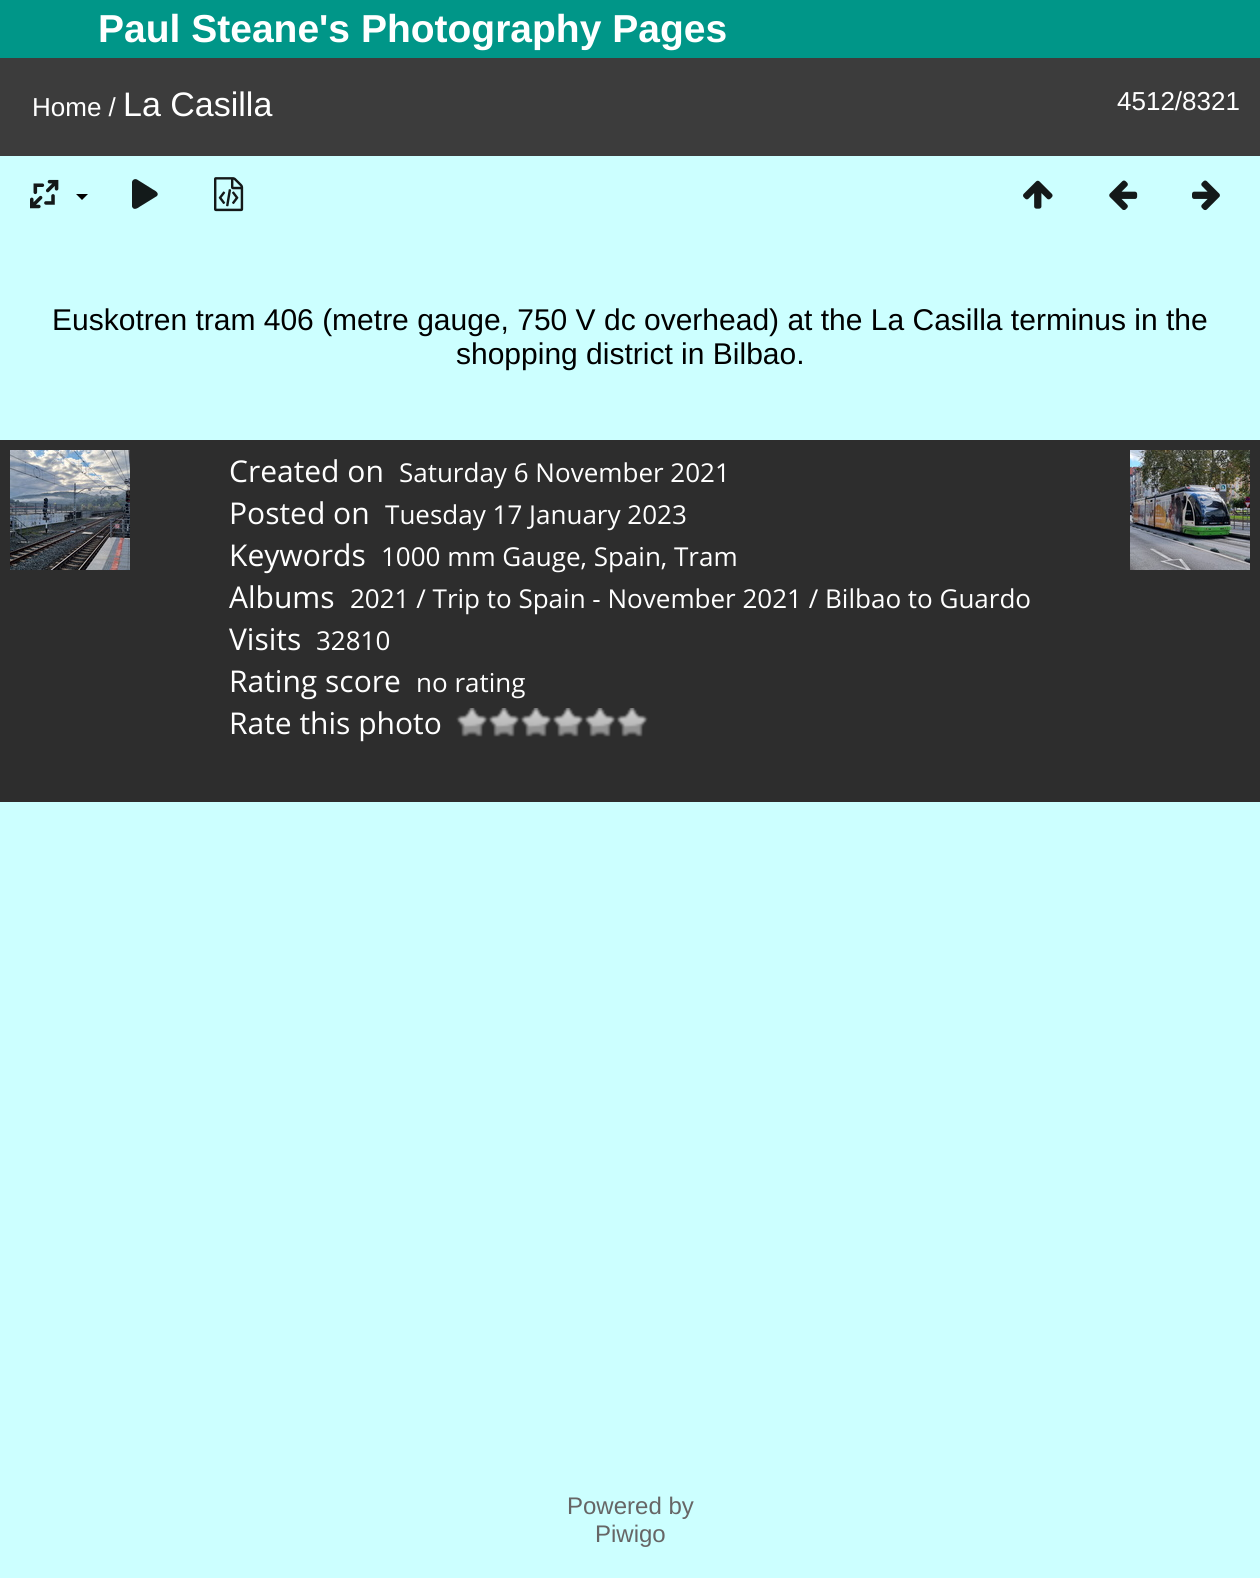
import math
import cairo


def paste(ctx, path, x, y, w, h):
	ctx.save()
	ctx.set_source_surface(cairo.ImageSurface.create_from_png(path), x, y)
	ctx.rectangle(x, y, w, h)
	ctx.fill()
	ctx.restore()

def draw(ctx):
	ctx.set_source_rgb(0.8, 1, 1)
	ctx.paint()
	ctx.set_source_rgb(0, 0.588, 0.533)
	ctx.rectangle(0, 0, 1260, 58)
	ctx.fill()
	ctx.select_font_face('Liberation Sans', cairo.FONT_SLANT_NORMAL, cairo.FONT_WEIGHT_BOLD)
	ctx.set_font_size(39)
	ctx.set_source_rgb(1, 1, 1)
	ctx.move_to(98, 42)
	ctx.show_text('Paul Steane\'s Photography Pages')
	ctx.set_source_rgb(0.235, 0.235, 0.235)
	ctx.rectangle(0, 58, 1260, 98)
	ctx.fill()
	ctx.select_font_face('Liberation Sans')
	ctx.set_font_size(26)
	ctx.set_source_rgb(1, 1, 1)
	ctx.move_to(32, 116)
	ctx.show_text('Home /')
	ctx.set_font_size(34)
	ctx.move_to(123, 116)
	ctx.show_text('La Casilla')
	ctx.set_font_size(26)
	ctx.move_to(1117, 110)
	ctx.show_text('4512/8321')
	paste(ctx, 'media/1.png', 30, 179, 29, 30)
	ctx.set_source_rgb(0, 0, 0)
	ctx.new_path()
	ctx.move_to(76, 194)
	ctx.line_to(88, 194)
	ctx.line_to(82, 200)
	ctx.close_path()
	ctx.fill()
	ctx.set_source_rgb(0.078, 0.102, 0.102)
	ctx.new_path()
	ctx.move_to(137, 179.5)
	ctx.curve_to(135, 178.5, 132.5, 179.5, 132, 182)
	ctx.line_to(132, 206.5)
	ctx.curve_to(133.5, 211, 138, 208, 140, 206.5)
	ctx.line_to(157, 196)
	ctx.curve_to(159.5, 193, 155, 190.5, 153, 189.5)
	ctx.close_path()
	ctx.fill()
	paste(ctx, 'media/2.png', 214, 177, 30, 35)
	paste(ctx, 'media/3.png', 1023, 180, 30, 29)
	paste(ctx, 'media/4.png', 1109, 180, 29, 30)
	paste(ctx, 'media/5.png', 1192, 180, 28, 31)
	ctx.set_font_size(30)
	ctx.set_source_rgb(0, 0, 0)
	ctx.move_to(52, 330)
	ctx.show_text('Euskotren tram 406 (metre gauge, 750 V dc overhead) at the La Casilla terminus in the')
	ctx.move_to(456, 364)
	ctx.show_text('shopping district in Bilbao.')
	ctx.set_source_rgb(0.176, 0.176, 0.176)
	ctx.rectangle(0, 440, 1260, 362)
	ctx.fill()
	paste(ctx, 'media/6.png', 10, 450, 120, 120)
	paste(ctx, 'media/7.png', 1130, 450, 120, 120)
	ctx.select_font_face('Open Sans')
	ctx.set_source_rgb(1, 1, 1)
	ctx.move_to(229, 482)
	ctx.show_text('Created on')
	ctx.set_font_size(26)
	ctx.move_to(399, 482)
	ctx.show_text('Saturday 6 November 2021')
	ctx.set_font_size(30)
	ctx.move_to(229, 524)
	ctx.show_text('Posted on')
	ctx.set_font_size(26)
	ctx.move_to(385, 524)
	ctx.show_text('Tuesday 17 January 2023')
	ctx.set_font_size(30)
	ctx.move_to(229, 566)
	ctx.show_text('Keywords')
	ctx.set_font_size(26)
	ctx.move_to(381, 566)
	ctx.show_text('1000 mm Gauge, Spain, Tram')
	ctx.set_font_size(30)
	ctx.move_to(229, 608)
	ctx.show_text('Albums')
	ctx.set_font_size(26)
	ctx.move_to(350, 608)
	ctx.show_text('2021 / Trip to Spain - November 2021 / Bilbao to Guardo')
	ctx.set_font_size(30)
	ctx.move_to(229, 650)
	ctx.show_text('Visits')
	ctx.set_font_size(26)
	ctx.move_to(316, 650)
	ctx.show_text('32810')
	ctx.set_font_size(30)
	ctx.move_to(229, 692)
	ctx.show_text('Rating score')
	ctx.set_font_size(26)
	ctx.move_to(416, 692)
	ctx.show_text('no rating')
	ctx.set_font_size(30)
	ctx.move_to(229, 734)
	ctx.show_text('Rate this photo')
	paste(ctx, 'media/8.png', 456, 708, 32, 29)
	paste(ctx, 'media/8.png', 488, 708, 32, 29)
	paste(ctx, 'media/8.png', 520, 708, 32, 29)
	paste(ctx, 'media/8.png', 552, 708, 32, 29)
	paste(ctx, 'media/8.png', 584, 708, 32, 29)
	paste(ctx, 'media/8.png', 616, 708, 32, 29)
	ctx.select_font_face('Liberation Sans')
	ctx.set_font_size(24)
	ctx.set_source_rgb(0.4, 0.4, 0.4)
	ctx.move_to(567, 1514)
	ctx.show_text('Powered by')
	ctx.move_to(595, 1542)
	ctx.show_text('Piwigo')


surface = cairo.ImageSurface(cairo.FORMAT_RGB24, 1260, 1578)
ctx = cairo.Context(surface)
options = cairo.FontOptions()
options.set_hint_metrics(cairo.HINT_METRICS_OFF)
options.set_hint_style(cairo.HINT_STYLE_NONE)
ctx.set_font_options(options)
ctx.set_miter_limit(4)
draw(ctx)
surface.write_to_png('image.png')
